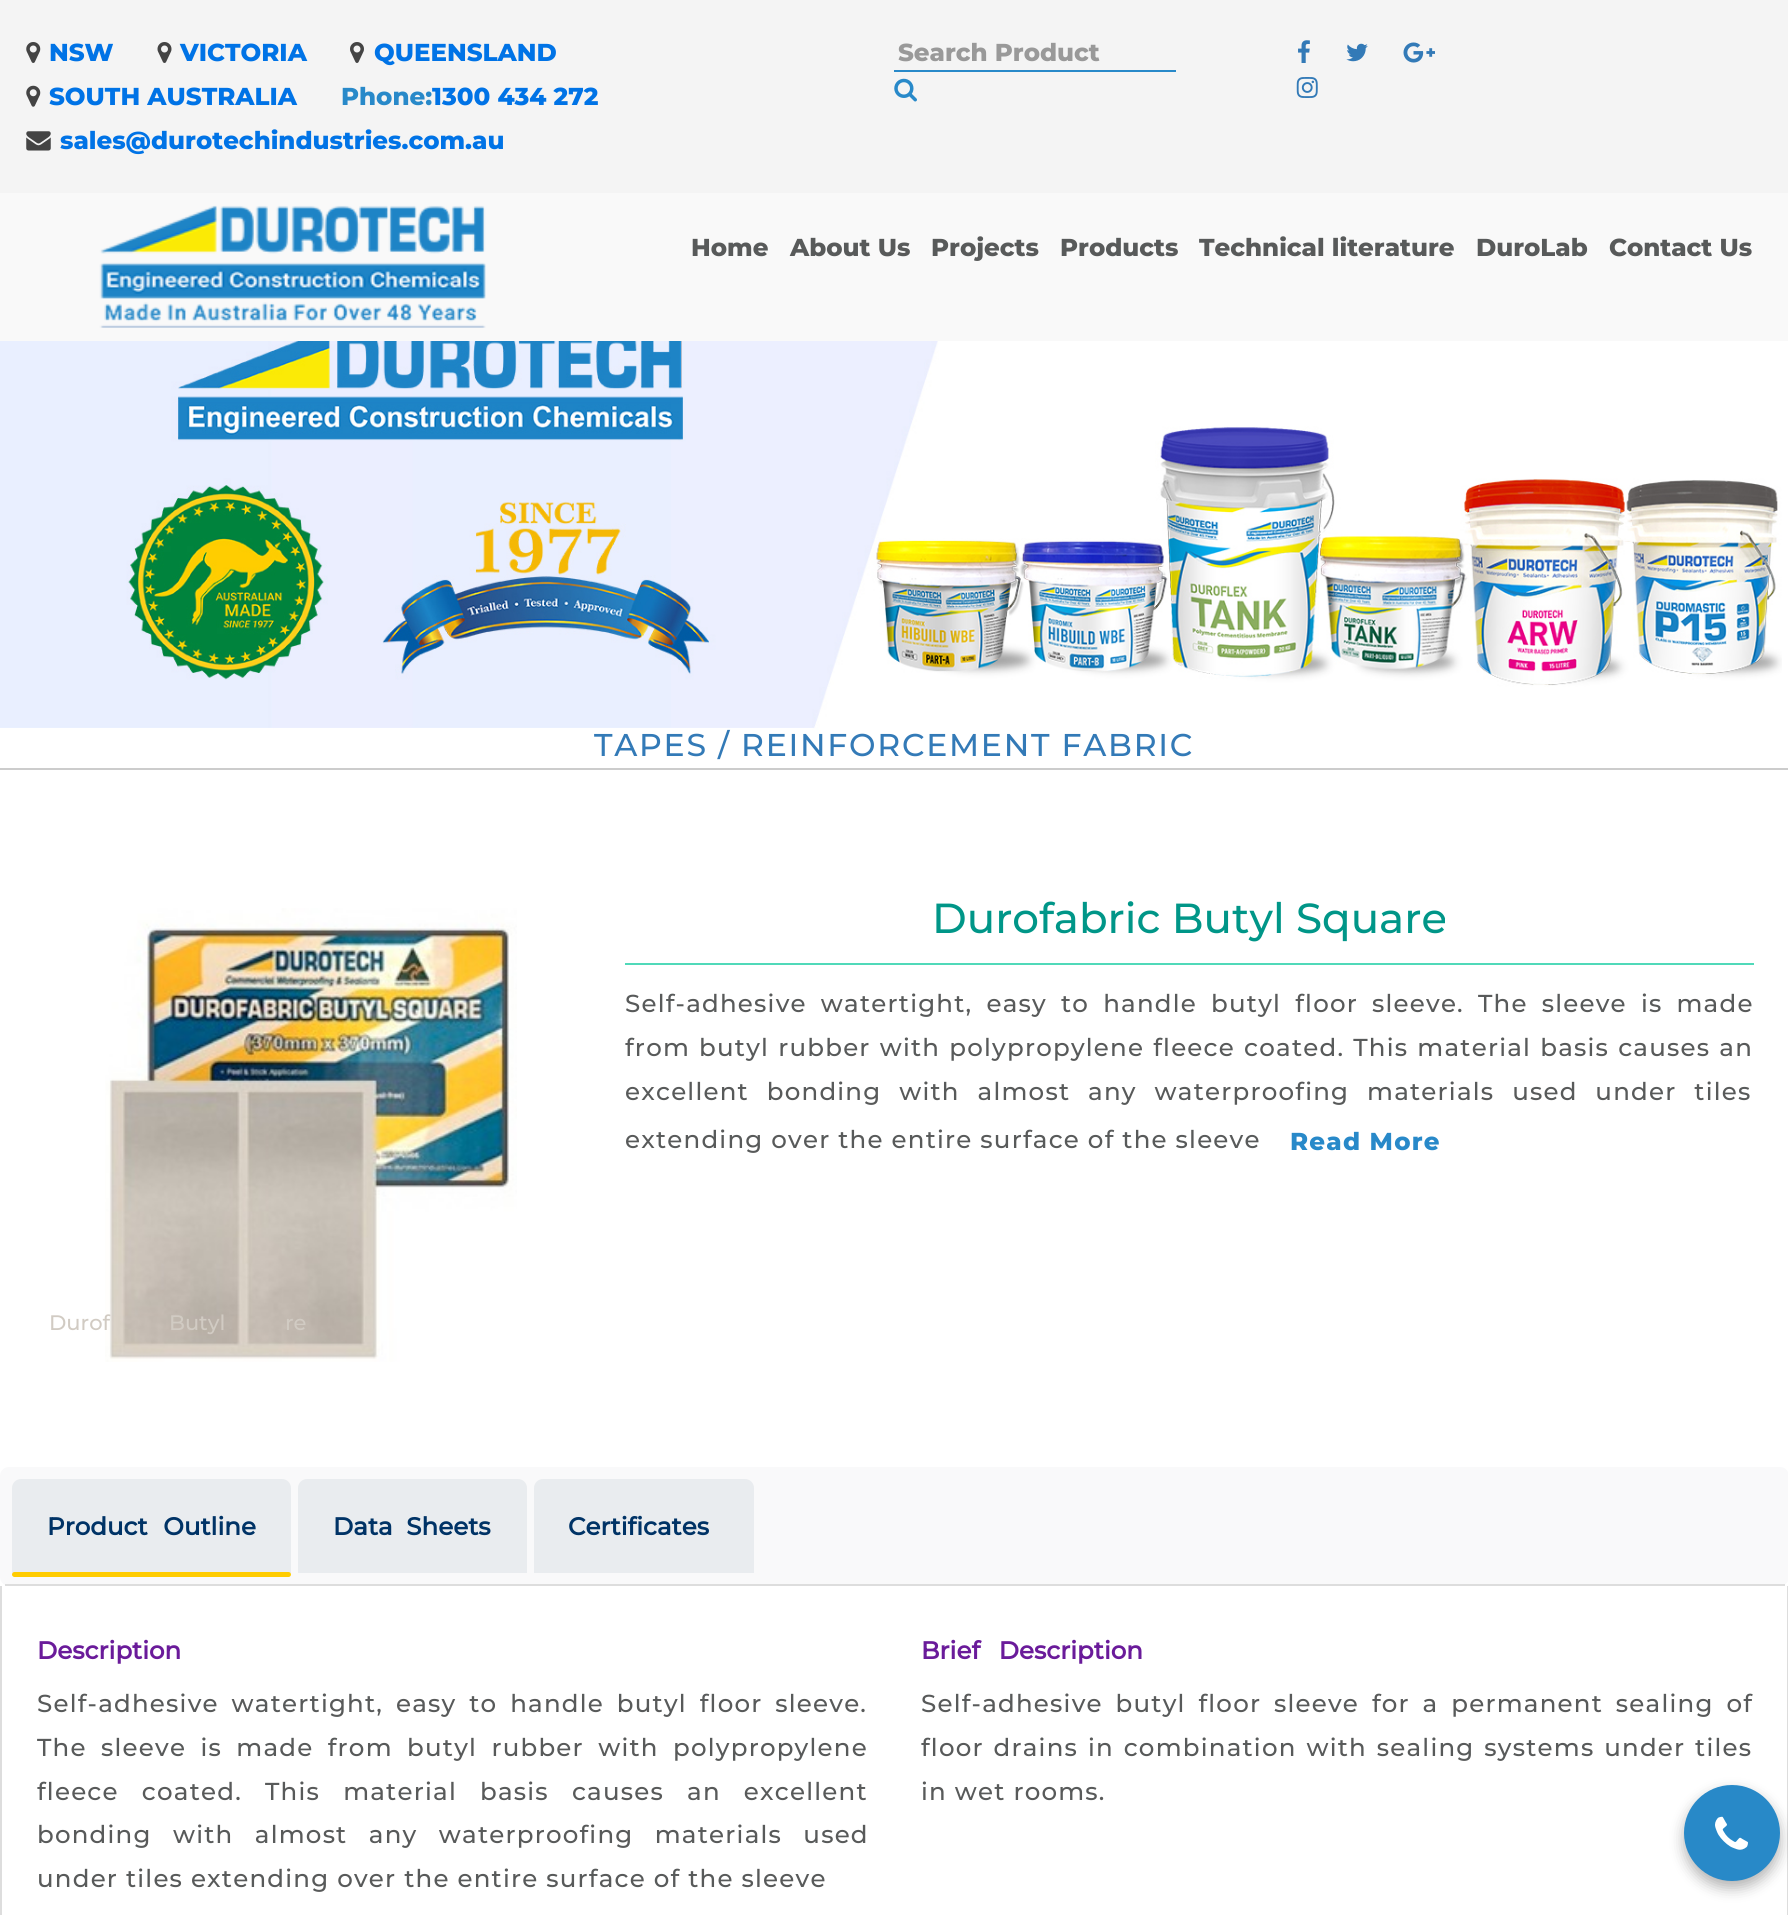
import math
import cairo


def write_spaced(ctx, x, y, s, letter, word):
	ctx.move_to(x, y)
	for ch in s:
		ctx.show_text(ch)
		ctx.rel_move_to(letter + word * (ch == ' '), 0)

def round_path(ctx, x, y, w, h, r):
	ctx.new_sub_path()
	for i, (u, v) in enumerate([(x + w - r, y + h - r), (x + r, y + h - r), (x + r, y + r), (x + w - r, y + r)]):
		ctx.arc(u, v, r, i * math.pi / 2, (i + 1) * math.pi / 2)
	ctx.close_path()

def blur_box(ctx, x, y, w, h, r, blur, alpha):
	ctx.push_group_with_content(cairo.CONTENT_ALPHA)
	ctx.set_operator(cairo.OPERATOR_SOURCE)
	for i in range(15, -16, -2):
		e = blur * i / 6
		if min(w, h) + 2 * e > 0:
			ctx.set_source_rgba(0, 0, 0, alpha * math.erfc((i - 1) / 8.5) / 2)
			round_path(ctx, x - e, y - e, w + 2 * e, h + 2 * e, max(0, min(r + e + blur * .6, min(w, h) / 2 + e)))
			ctx.fill()
	ctx.mask(ctx.pop_group())

def paste(ctx, path, x, y, w, h):
	ctx.save()
	ctx.set_source_surface(cairo.ImageSurface.create_from_png(path), x, y)
	ctx.rectangle(x, y, w, h)
	ctx.fill()
	ctx.restore()

def draw(ctx):
	ctx.set_source_rgb(1, 1, 1)
	ctx.paint()
	ctx.set_source_rgb(0.957, 0.957, 0.957)
	ctx.rectangle(0, 0, 1788, 193)
	ctx.fill()
	paste(ctx, 'media/1.png', 26, 42, 15, 21)
	ctx.select_font_face('Montserrat ExtraBold')
	ctx.set_font_size(24.5)
	ctx.set_source_rgb(0, 0.451, 0.902)
	ctx.move_to(49, 61)
	ctx.show_text('NSW')
	paste(ctx, 'media/2.png', 157, 42, 15, 21)
	ctx.move_to(180, 61)
	ctx.show_text('VICTORIA')
	paste(ctx, 'media/3.png', 350, 42, 14, 21)
	ctx.move_to(374, 61)
	ctx.show_text('QUEENSLAND')
	paste(ctx, 'media/4.png', 26, 85, 15, 22)
	ctx.move_to(49, 105)
	ctx.show_text('SOUTH AUSTRALIA')
	ctx.set_source_rgb(0.157, 0.537, 0.788)
	ctx.move_to(341, 105)
	ctx.show_text('Phone:')
	ctx.set_source_rgb(0, 0.451, 0.902)
	ctx.move_to(432, 105)
	ctx.show_text('1300 434 272')
	paste(ctx, 'media/5.png', 26, 131, 25, 20)
	ctx.move_to(60, 149)
	ctx.show_text('sales@durotechindustries.com.au')
	ctx.set_source_rgb(0.157, 0.537, 0.788)
	ctx.rectangle(894, 70, 282, 2)
	ctx.fill()
	ctx.set_source_rgb(0.6, 0.6, 0.6)
	ctx.move_to(898, 61)
	ctx.show_text('Search Product')
	paste(ctx, 'media/6.png', 894, 78, 23, 24)
	paste(ctx, 'media/7.png', 1298, 40, 12, 23)
	paste(ctx, 'media/8.png', 1346, 43, 22, 19)
	paste(ctx, 'media/9.png', 1403, 42, 32, 21)
	paste(ctx, 'media/10.png', 1296, 77, 22, 21)
	ctx.set_source_rgb(0.973, 0.973, 0.973)
	ctx.rectangle(0, 193, 1788, 148)
	ctx.fill()
	paste(ctx, 'media/11.png', 99, 205, 387, 123)
	ctx.set_source_rgb(0.345, 0.353, 0.353)
	for x, y, s in [
		(691, 256, 'Home'),
		(790, 256, 'About Us'),
		(931, 256, 'Projects'),
		(1060, 256, 'Products'),
		(1199, 256, 'Technical literature'),
		(1476, 256, 'DuroLab'),
		(1609, 256, 'Contact Us'),
	]:
		ctx.move_to(x, y)
		ctx.show_text(s)
	ctx.select_font_face('Montserrat Medium')
	ctx.set_font_size(31.5)
	ctx.set_source_rgb(0.2, 0.478, 0.718)
	write_spaced(ctx, 594, 756, 'TAPES / REINFORCEMENT FABRIC', 1.75, 0)
	paste(ctx, 'media/12.png', 0, 341, 1782, 389)
	ctx.set_source_rgb(0.8, 0.8, 0.8)
	ctx.rectangle(0, 768, 1788, 2)
	ctx.fill()
	ctx.set_source_rgb(0.314, 0.851, 0.725)
	ctx.rectangle(625, 963, 1129, 2)
	ctx.fill()
	ctx.set_font_size(42)
	ctx.set_source_rgb(0, 0.588, 0.533)
	ctx.move_to(932, 933)
	ctx.show_text('Durofabric Butyl Square')
	ctx.set_font_size(24.5)
	ctx.set_source_rgb(0.345, 0.353, 0.353)
	write_spaced(ctx, 625, 1012, 'Self-adhesive watertight, easy to handle butyl floor sleeve. The sleeve is made', 1.22, 6.25)
	write_spaced(ctx, 625, 1056, 'from butyl rubber with polypropylene fleece coated. This material basis causes an', 1.22, 1.25)
	write_spaced(ctx, 625, 1100, 'excellent bonding with almost any waterproofing materials used under tiles', 1.22, 10)
	write_spaced(ctx, 625, 1148, 'extending over the entire surface of the sleeve', 1.22, 0)
	ctx.select_font_face('Montserrat ExtraBold')
	ctx.set_source_rgb(0.157, 0.537, 0.788)
	write_spaced(ctx, 1290, 1150, 'Read More', 1.22, 0)
	paste(ctx, 'media/13.png', 105, 908, 412, 454)
	ctx.select_font_face('Montserrat Medium')
	ctx.set_font_size(21)
	ctx.set_source_rgb(0.82, 0.796, 0.765)
	for x, y, s in [
		(49, 1330, 'Durof'),
		(169, 1330, 'Butyl'),
		(285, 1330, 're'),
	]:
		ctx.move_to(x, y)
		ctx.show_text(s)
	ctx.set_source_rgb(0.973, 0.976, 0.98)
	round_path(ctx, 0, 1467, 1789, 119, 9)
	ctx.fill()
	ctx.set_source_rgb(0.867, 0.867, 0.867)
	ctx.rectangle(5, 1584, 1780, 2)
	ctx.fill()
	ctx.set_source_rgb(0.914, 0.925, 0.937)
	ctx.new_path()
	ctx.move_to(21, 1479)
	ctx.line_to(282, 1479)
	ctx.curve_to(287, 1479, 291, 1483, 291, 1488)
	ctx.line_to(291, 1573)
	ctx.line_to(12, 1573)
	ctx.line_to(12, 1488)
	ctx.curve_to(12, 1483, 16, 1479, 21, 1479)
	ctx.close_path()
	ctx.fill()
	ctx.select_font_face('Montserrat', cairo.FONT_SLANT_NORMAL, cairo.FONT_WEIGHT_BOLD)
	ctx.set_font_size(24.5)
	ctx.set_source_rgb(0, 0.2, 0.4)
	write_spaced(ctx, 47, 1535, 'Product Outline', 0, 9)
	ctx.set_source_rgb(1, 0.8, 0)
	round_path(ctx, 12, 1572, 279, 5, 2.5)
	ctx.fill()
	ctx.set_source_rgb(0.914, 0.925, 0.937)
	ctx.new_path()
	ctx.move_to(307, 1479)
	ctx.line_to(518, 1479)
	ctx.curve_to(523, 1479, 527, 1483, 527, 1488)
	ctx.line_to(527, 1573)
	ctx.line_to(298, 1573)
	ctx.line_to(298, 1488)
	ctx.curve_to(298, 1483, 302, 1479, 307, 1479)
	ctx.close_path()
	ctx.fill()
	ctx.set_source_rgb(0, 0.2, 0.4)
	write_spaced(ctx, 333, 1535, 'Data Sheets', 0, 7)
	ctx.set_source_rgb(0.914, 0.925, 0.937)
	ctx.new_path()
	ctx.move_to(543, 1479)
	ctx.line_to(745, 1479)
	ctx.curve_to(750, 1479, 754, 1483, 754, 1488)
	ctx.line_to(754, 1573)
	ctx.line_to(534, 1573)
	ctx.line_to(534, 1488)
	ctx.curve_to(534, 1483, 538, 1479, 543, 1479)
	ctx.close_path()
	ctx.fill()
	ctx.set_source_rgb(0, 0.2, 0.4)
	ctx.move_to(568, 1535)
	ctx.show_text('Certificates')
	ctx.set_source_rgb(0.867, 0.867, 0.867)
	ctx.set_fill_rule(cairo.FILL_RULE_EVEN_ODD)
	ctx.new_path()
	ctx.move_to(0, 1586)
	ctx.line_to(1788, 1586)
	ctx.line_to(1788, 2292)
	ctx.curve_to(1788, 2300, 1782, 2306, 1774, 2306)
	ctx.line_to(14, 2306)
	ctx.curve_to(6, 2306, 0, 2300, 0, 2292)
	ctx.close_path()
	ctx.move_to(2, 1586)
	ctx.line_to(1787, 1586)
	ctx.line_to(1787, 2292)
	ctx.curve_to(1787, 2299, 1781, 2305, 1774, 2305)
	ctx.line_to(14, 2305)
	ctx.curve_to(7, 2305, 2, 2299, 2, 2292)
	ctx.close_path()
	ctx.fill()
	ctx.set_source_rgb(0.416, 0.106, 0.604)
	ctx.move_to(37, 1659)
	ctx.show_text('Description')
	ctx.select_font_face('Montserrat Medium')
	ctx.set_source_rgb(0.345, 0.353, 0.353)
	write_spaced(ctx, 37, 1712, 'Self-adhesive watertight, easy to handle butyl floor sleeve.', 1.22, 5)
	write_spaced(ctx, 37, 1756, 'The sleeve is made from butyl rubber with polypropylene', 1.22, 6.5)
	write_spaced(ctx, 37, 1800, 'fleece coated. This material basis causes an excellent', 1.22, 15.25)
	write_spaced(ctx, 37, 1843, 'bonding with almost any waterproofing materials used', 1.22, 13.5)
	write_spaced(ctx, 37, 1887, 'under tiles extending over the entire surface of the sleeve', 1.22, 0)
	ctx.select_font_face('Montserrat', cairo.FONT_SLANT_NORMAL, cairo.FONT_WEIGHT_BOLD)
	ctx.set_source_rgb(0.416, 0.106, 0.604)
	write_spaced(ctx, 921, 1659, 'Brief Description', 0, 12)
	ctx.select_font_face('Montserrat Medium')
	ctx.set_source_rgb(0.345, 0.353, 0.353)
	write_spaced(ctx, 921, 1712, 'Self-adhesive butyl floor sleeve for a permanent sealing of', 1.22, 5)
	write_spaced(ctx, 921, 1756, 'floor drains in combination with sealing systems under tiles', 1.22, 2)
	write_spaced(ctx, 921, 1800, 'in wet rooms.', 1.22, 0)
	ctx.set_source_rgb(0, 0, 0)
	blur_box(ctx, 1684, 1792, 96, 96, 48, 7, 0.3)
	ctx.set_source_rgb(0.157, 0.537, 0.784)
	ctx.arc(1732, 1833, 48, 0, 2 * math.pi)
	ctx.fill()
	paste(ctx, 'media/14.png', 1715, 1816, 33, 34)


surface = cairo.ImageSurface(cairo.FORMAT_RGB24, 1788, 1915)
ctx = cairo.Context(surface)
options = cairo.FontOptions()
options.set_hint_metrics(cairo.HINT_METRICS_OFF)
options.set_hint_style(cairo.HINT_STYLE_NONE)
ctx.set_font_options(options)
ctx.set_miter_limit(4)
draw(ctx)
surface.write_to_png('image.png')
